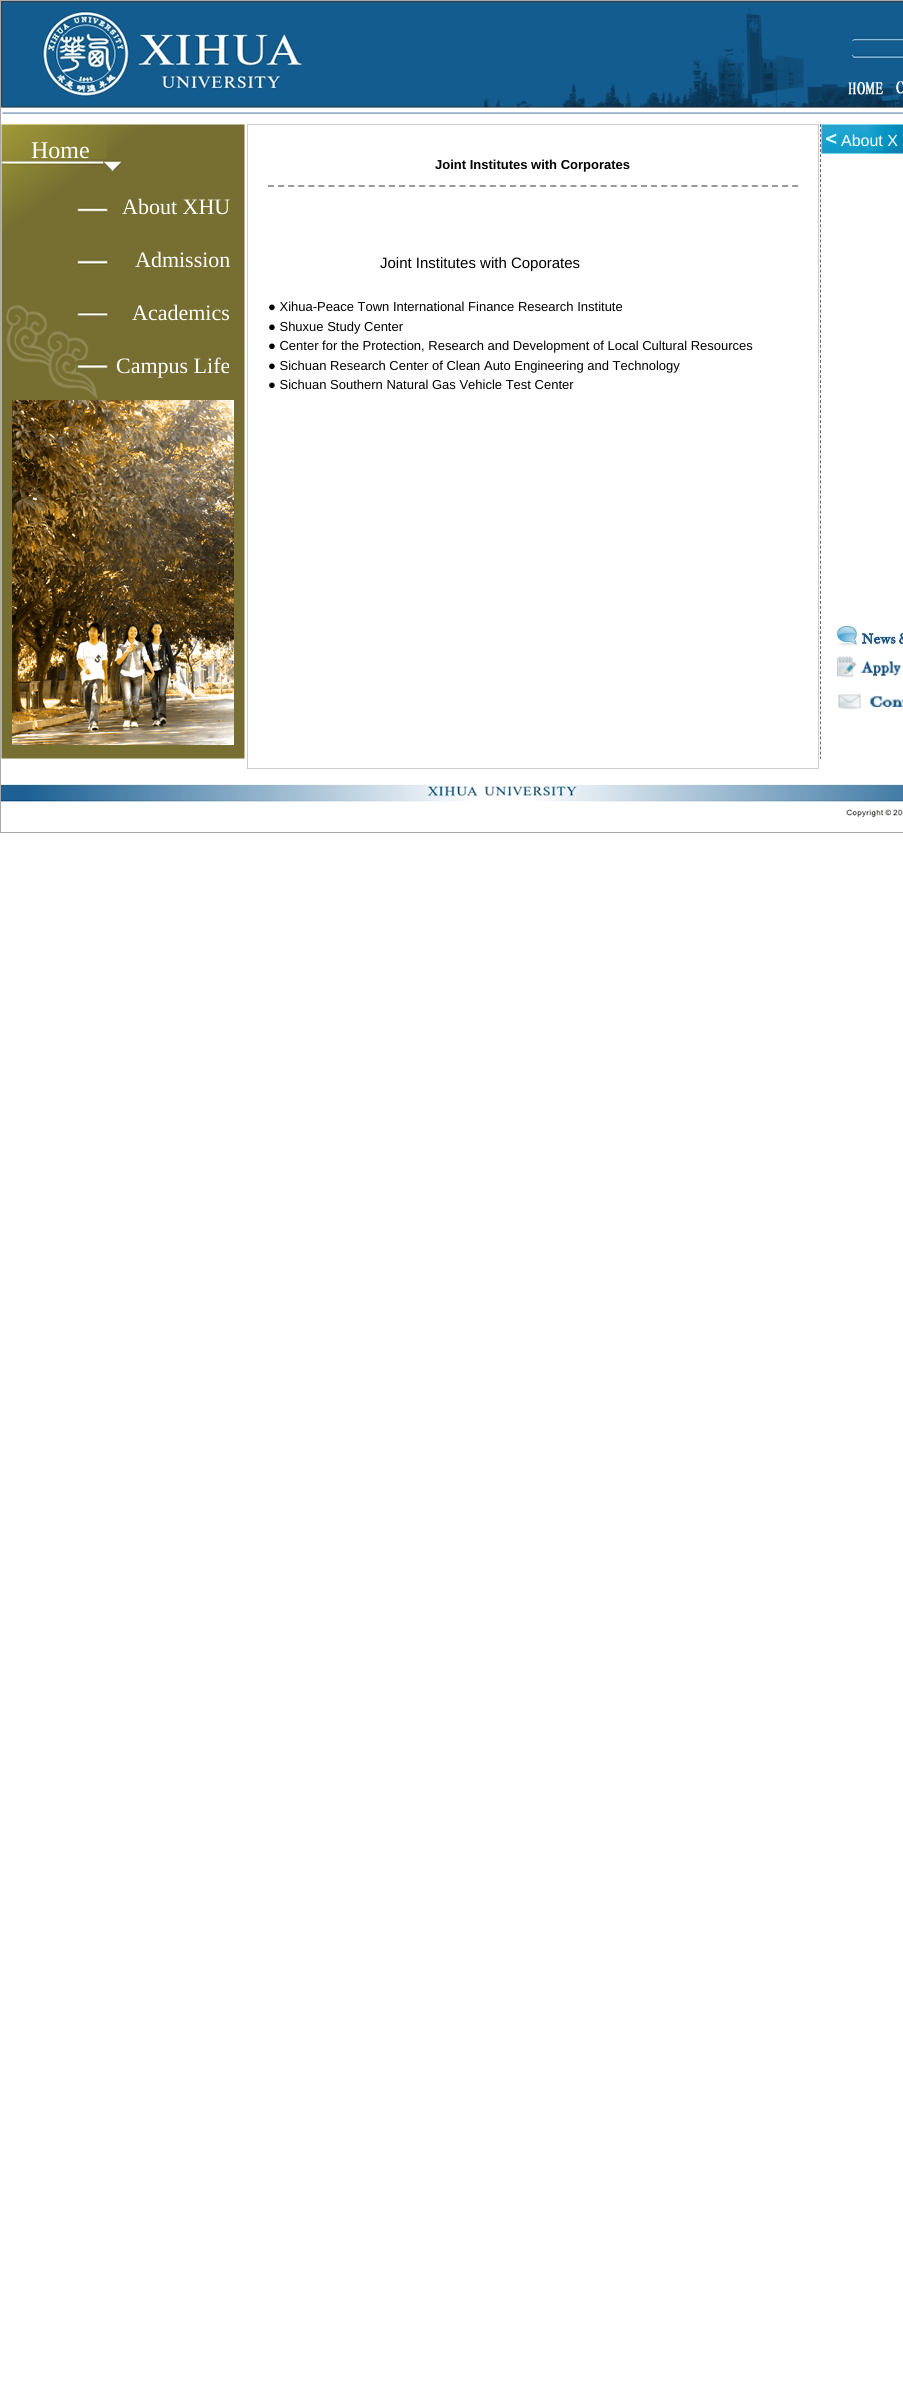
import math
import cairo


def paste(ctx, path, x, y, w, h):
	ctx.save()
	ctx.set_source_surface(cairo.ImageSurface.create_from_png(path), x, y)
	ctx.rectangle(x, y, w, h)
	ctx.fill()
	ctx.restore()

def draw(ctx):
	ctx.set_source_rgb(1, 1, 1)
	ctx.paint()
	ctx.rectangle(0.5, 0.5, 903, 832)
	ctx.set_source_rgb(0.667, 0.667, 0.667)
	ctx.set_line_width(1)
	ctx.stroke()
	paste(ctx, 'media/1.png', 1, 1, 902, 113)
	ctx.set_source_rgb(0.075, 0.361, 0.561)
	ctx.rectangle(849, 41, 54, 14)
	ctx.fill()
	ctx.new_path()
	ctx.move_to(820.5, 124)
	ctx.line_to(820.5, 759)
	ctx.set_source_rgb(0.4, 0.4, 0.4)
	ctx.set_dash([3, 2.02])
	ctx.stroke()
	paste(ctx, 'media/2.png', 821, 124, 82, 30)
	ctx.select_font_face('Liberation Sans')
	ctx.set_font_size(16)
	ctx.set_source_rgb(1, 1, 1)
	ctx.move_to(841, 146)
	ctx.show_text('About X')
	paste(ctx, 'media/3.png', 836, 625, 67, 21)
	paste(ctx, 'media/4.png', 836, 656, 67, 22)
	paste(ctx, 'media/5.png', 838, 694, 65, 16)
	paste(ctx, 'media/6.png', 1, 124, 244, 635)
	ctx.select_font_face('Liberation Serif')
	ctx.set_font_size(24)
	ctx.move_to(31, 158)
	ctx.show_text('Home')
	ctx.set_font_size(22)
	for x, y, s in [
		(122, 214, 'About XHU'),
		(135, 267, 'Admission'),
		(132, 320, 'Academics'),
		(116, 373, 'Campus Life'),
	]:
		ctx.move_to(x, y)
		ctx.show_text(s)
	paste(ctx, 'media/7.png', 12, 400, 222, 345)
	ctx.rectangle(247.5, 124.5, 571, 644)
	ctx.set_source_rgb(0.8, 0.8, 0.8)
	ctx.set_dash([])
	ctx.stroke()
	ctx.select_font_face('Liberation Sans', cairo.FONT_SLANT_NORMAL, cairo.FONT_WEIGHT_BOLD)
	ctx.set_font_size(13)
	ctx.set_source_rgb(0, 0, 0)
	ctx.move_to(435, 169)
	ctx.show_text('Joint Institutes with Corporates')
	ctx.new_path()
	ctx.move_to(268, 186)
	ctx.line_to(798, 186)
	ctx.set_source_rgb(0.6, 0.6, 0.6)
	ctx.set_line_width(2)
	ctx.set_dash([6, 4.08])
	ctx.stroke()
	ctx.select_font_face('Liberation Sans')
	ctx.set_font_size(15)
	ctx.set_source_rgb(0, 0, 0)
	ctx.move_to(380, 268)
	ctx.show_text('Joint Institutes with Coporates')
	ctx.set_font_size(13)
	for x, y, s in [
		(268, 311, '● Xihua-Peace Town International Finance Research Institute'),
		(268, 331, '● Shuxue Study Center'),
		(268, 350, '● Center for the Protection, Research and Development of Local Cultural Resources'),
		(268, 370, '● Sichuan Research Center of Clean Auto Engineering and Technology'),
		(268, 389, '● Sichuan Southern Natural Gas Vehicle Test Center'),
	]:
		ctx.move_to(x, y)
		ctx.show_text(s)
	paste(ctx, 'media/8.png', 1, 784, 902, 33)


surface = cairo.ImageSurface(cairo.FORMAT_RGB24, 903, 2389)
ctx = cairo.Context(surface)
options = cairo.FontOptions()
options.set_hint_metrics(cairo.HINT_METRICS_OFF)
options.set_hint_style(cairo.HINT_STYLE_NONE)
ctx.set_font_options(options)
ctx.set_miter_limit(4)
draw(ctx)
surface.write_to_png('image.png')
